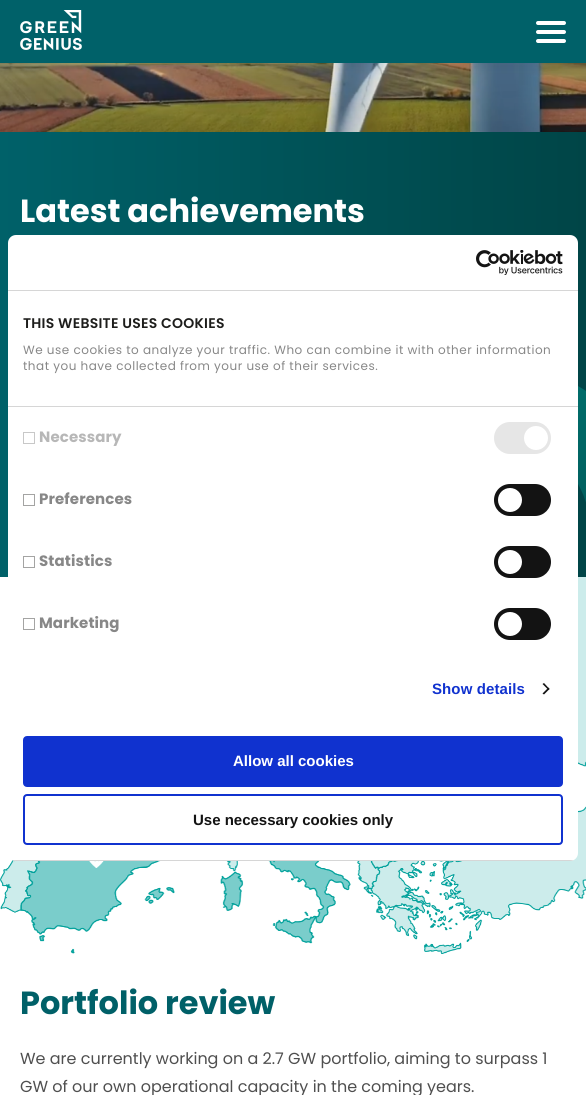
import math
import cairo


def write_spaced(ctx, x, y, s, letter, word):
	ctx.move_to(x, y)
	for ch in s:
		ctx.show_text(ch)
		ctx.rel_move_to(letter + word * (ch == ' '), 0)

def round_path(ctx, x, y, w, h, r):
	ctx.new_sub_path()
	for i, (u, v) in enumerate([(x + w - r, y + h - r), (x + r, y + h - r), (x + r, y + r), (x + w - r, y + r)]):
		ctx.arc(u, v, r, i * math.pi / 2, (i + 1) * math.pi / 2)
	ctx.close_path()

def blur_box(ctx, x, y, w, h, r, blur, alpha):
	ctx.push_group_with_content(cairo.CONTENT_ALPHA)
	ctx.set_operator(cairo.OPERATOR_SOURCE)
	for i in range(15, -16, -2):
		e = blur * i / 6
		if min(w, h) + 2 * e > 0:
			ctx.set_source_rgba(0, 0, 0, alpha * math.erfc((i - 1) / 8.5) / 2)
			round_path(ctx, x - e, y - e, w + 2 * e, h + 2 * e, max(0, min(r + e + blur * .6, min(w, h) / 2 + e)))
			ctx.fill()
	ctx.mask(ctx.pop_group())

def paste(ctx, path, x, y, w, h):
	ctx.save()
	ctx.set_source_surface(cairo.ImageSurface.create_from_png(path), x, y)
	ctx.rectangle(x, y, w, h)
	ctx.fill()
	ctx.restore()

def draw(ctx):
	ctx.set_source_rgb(1, 1, 1)
	ctx.paint()
	paste(ctx, 'media/2.png', 0, 63, 586, 69)
	ctx.set_source_rgb(0, 0, 0)
	blur_box(ctx, 0, 0, 586, 63, 0, 7.5, 0.05)
	ctx.set_source_rgb(0, 0.38, 0.412)
	ctx.rectangle(0, 0, 586, 63)
	ctx.fill()
	paste(ctx, 'media/1.png', 20, 10, 62, 40)
	ctx.set_source_rgb(1, 1, 1)
	round_path(ctx, 536, 21, 30, 4, 2)
	ctx.fill()
	round_path(ctx, 536, 30, 30, 4, 2)
	ctx.fill()
	round_path(ctx, 536, 39, 30, 4, 2)
	ctx.fill()
	gradient = cairo.LinearGradient(0, 355, 586, 355)
	gradient.add_color_stop_rgba(0, 0, 0.38, 0.412, 1)
	gradient.add_color_stop_rgba(1, 0, 0.271, 0.278, 1)
	ctx.set_source(gradient)
	ctx.rectangle(0, 132, 586, 445)
	ctx.fill()
	ctx.select_font_face('Poppins', cairo.FONT_SLANT_NORMAL, cairo.FONT_WEIGHT_BOLD)
	ctx.set_font_size(32)
	ctx.set_source_rgb(1, 1, 1)
	ctx.move_to(20, 222)
	ctx.show_text('Latest achievements')
	paste(ctx, 'media/3.png', 578, 386, 8, 116)
	paste(ctx, 'media/4.png', 0, 577, 586, 377)
	ctx.set_source_rgb(0, 0.376, 0.408)
	ctx.move_to(20, 1014)
	ctx.show_text('Portfolio review')
	ctx.select_font_face('Poppins')
	ctx.set_font_size(16)
	ctx.set_source_rgb(0.31, 0.31, 0.31)
	ctx.move_to(20, 1064)
	ctx.show_text('We are currently working on a 2.7 GW portfolio, aiming to surpass 1')
	ctx.move_to(20, 1092)
	ctx.show_text('GW of our own operational capacity in the coming years.')
	ctx.set_source_rgb(1, 1, 1)
	round_path(ctx, 8, 235, 570, 626, 8)
	ctx.fill()
	ctx.set_source_rgb(0.839, 0.839, 0.839)
	ctx.rectangle(8, 290, 570, 1)
	ctx.fill()
	paste(ctx, 'media/5.png', 476, 250, 87, 25)
	ctx.rectangle(8, 406, 570, 1)
	ctx.fill()
	ctx.select_font_face('Poppins SemiBold')
	ctx.set_font_size(14)
	ctx.set_source_rgb(0.114, 0.114, 0.106)
	write_spaced(ctx, 23, 328, 'THIS WEBSITE USES COOKIES', 0.25, 0)
	ctx.select_font_face('Poppins')
	ctx.set_font_size(12)
	ctx.set_source_rgb(0.529, 0.529, 0.529)
	write_spaced(ctx, 23, 354, 'We use cookies to analyze your traffic. Who can combine it with other information', 0.5, 0)
	write_spaced(ctx, 23, 370, 'that you have collected from your use of their services.', 0.5, 0)
	ctx.rectangle(23.5, 432.5, 11, 11)
	ctx.set_source_rgb(0.784, 0.784, 0.784)
	ctx.set_line_width(1)
	ctx.stroke()
	ctx.select_font_face('Poppins', cairo.FONT_SLANT_NORMAL, cairo.FONT_WEIGHT_BOLD)
	ctx.set_font_size(15)
	ctx.set_source_rgb(0.718, 0.718, 0.718)
	write_spaced(ctx, 39, 442, 'Necessary', 0.1, 0)
	ctx.set_source_rgb(0.902, 0.902, 0.902)
	round_path(ctx, 494, 422, 57, 32, 16)
	ctx.fill()
	ctx.set_source_rgb(1, 1, 1)
	ctx.arc(536, 438, 12, 0, 2 * math.pi)
	ctx.fill()
	ctx.rectangle(23.5, 494.5, 11, 11)
	ctx.set_source_rgb(0.643, 0.643, 0.639)
	ctx.stroke()
	ctx.set_source_rgb(0.529, 0.529, 0.529)
	write_spaced(ctx, 39, 504, 'Preferences', 0.1, 0)
	ctx.set_source_rgb(0.078, 0.078, 0.078)
	round_path(ctx, 494, 484, 57, 32, 16)
	ctx.fill()
	ctx.set_source_rgb(1, 1, 1)
	ctx.arc(510, 500, 12, 0, 2 * math.pi)
	ctx.fill()
	ctx.rectangle(23.5, 556.5, 11, 11)
	ctx.set_source_rgb(0.643, 0.643, 0.639)
	ctx.stroke()
	ctx.set_source_rgb(0.529, 0.529, 0.529)
	write_spaced(ctx, 39, 566, 'Statistics', 0.1, 0)
	ctx.set_source_rgb(0.078, 0.078, 0.078)
	round_path(ctx, 494, 546, 57, 32, 16)
	ctx.fill()
	ctx.set_source_rgb(1, 1, 1)
	ctx.arc(510, 562, 12, 0, 2 * math.pi)
	ctx.fill()
	ctx.rectangle(23.5, 618.5, 11, 11)
	ctx.set_source_rgb(0.643, 0.643, 0.639)
	ctx.stroke()
	ctx.set_source_rgb(0.529, 0.529, 0.529)
	write_spaced(ctx, 39, 628, 'Marketing', 0.1, 0)
	ctx.set_source_rgb(0.078, 0.078, 0.078)
	round_path(ctx, 494, 608, 57, 32, 16)
	ctx.fill()
	ctx.set_source_rgb(1, 1, 1)
	ctx.arc(510, 624, 12, 0, 2 * math.pi)
	ctx.fill()
	ctx.select_font_face('Liberation Sans', cairo.FONT_SLANT_NORMAL, cairo.FONT_WEIGHT_BOLD)
	ctx.set_source_rgb(0.063, 0.196, 0.812)
	write_spaced(ctx, 432, 694, 'Show details', 0.1, 0)
	ctx.set_source_rgb(0.078, 0.078, 0.078)
	ctx.new_path()
	ctx.move_to(544, 683)
	ctx.line_to(549.5, 689)
	ctx.line_to(548.5, 690)
	ctx.line_to(542.5, 684)
	ctx.close_path()
	ctx.fill()
	ctx.new_path()
	ctx.move_to(548.5, 687.5)
	ctx.line_to(549.5, 689)
	ctx.line_to(544, 694.5)
	ctx.line_to(542.5, 693.5)
	ctx.close_path()
	ctx.fill()
	ctx.save()
	round_path(ctx, 8, 235, 570, 626, 8)
	ctx.clip()
	ctx.set_source_rgb(0.839, 0.839, 0.839)
	ctx.rectangle(8, 860, 570, 1)
	ctx.fill()
	ctx.restore()
	ctx.set_source_rgb(0.063, 0.196, 0.812)
	round_path(ctx, 24, 737, 538, 49, 3)
	ctx.fill_preserve()
	ctx.set_line_width(2)
	ctx.stroke()
	ctx.set_source_rgb(1, 1, 1)
	ctx.move_to(233, 766)
	ctx.show_text('Allow all cookies')
	round_path(ctx, 24, 795, 538, 49, 3)
	ctx.set_source_rgb(0.063, 0.196, 0.812)
	ctx.stroke()
	ctx.set_source_rgb(0.078, 0.078, 0.078)
	ctx.move_to(193, 825)
	ctx.show_text('Use necessary cookies only')


surface = cairo.ImageSurface(cairo.FORMAT_RGB24, 586, 1095)
ctx = cairo.Context(surface)
options = cairo.FontOptions()
options.set_hint_metrics(cairo.HINT_METRICS_OFF)
options.set_hint_style(cairo.HINT_STYLE_NONE)
ctx.set_font_options(options)
ctx.set_miter_limit(4)
draw(ctx)
surface.write_to_png('image.png')
